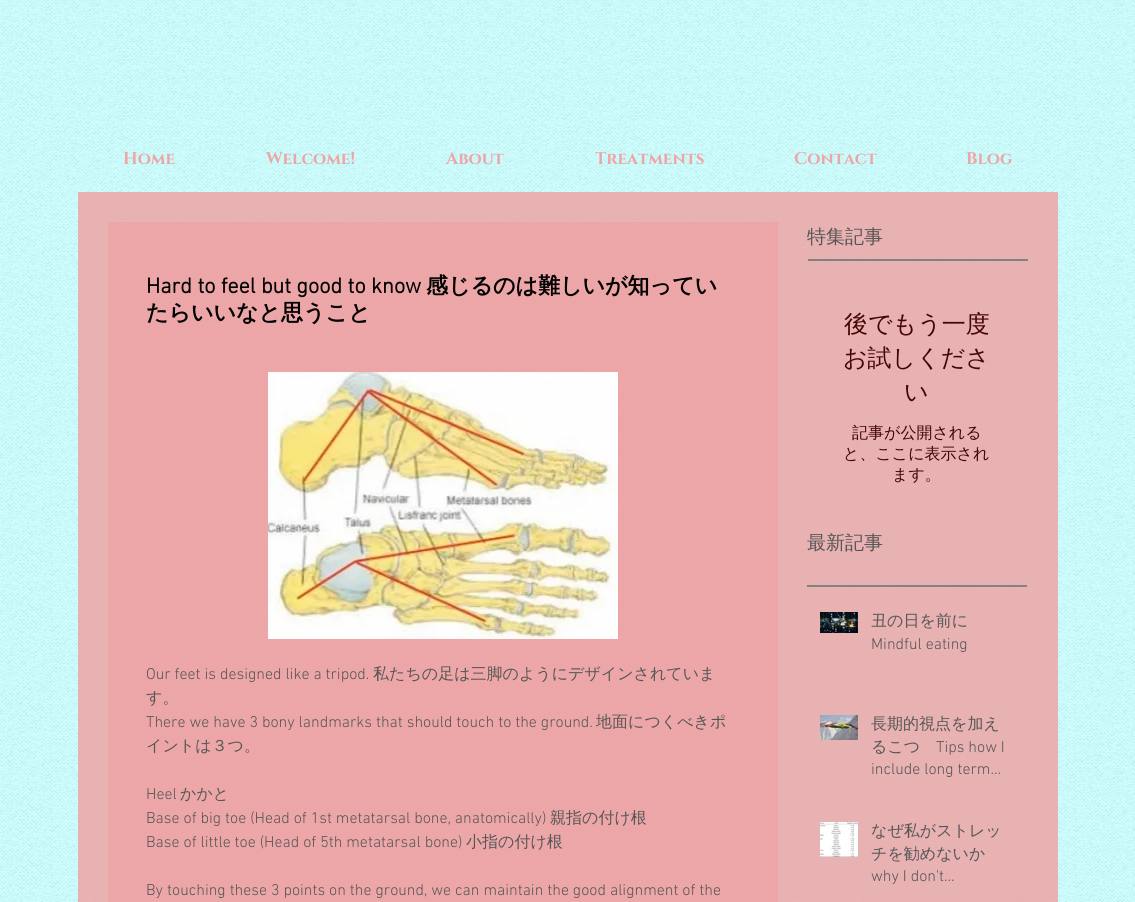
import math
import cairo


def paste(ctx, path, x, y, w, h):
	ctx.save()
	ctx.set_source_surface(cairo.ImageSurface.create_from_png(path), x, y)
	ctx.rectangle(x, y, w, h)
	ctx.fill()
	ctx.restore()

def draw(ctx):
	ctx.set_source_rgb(0.812, 1, 1)
	ctx.paint()
	paste(ctx, 'media/1.png', 0, 0, 1135, 902)
	ctx.select_font_face('Cinzel', cairo.FONT_SLANT_NORMAL, cairo.FONT_WEIGHT_BOLD)
	ctx.set_font_size(17)
	ctx.set_source_rgb(0.929, 0.647, 0.651)
	for x, y, s in [
		(123, 164, 'Home'),
		(266, 164, 'Welcome!'),
		(446, 164, 'About'),
		(595, 164, 'Treatments'),
		(794, 164, 'Contact'),
		(966, 164, 'Blog'),
	]:
		ctx.move_to(x, y)
		ctx.show_text(s)
	ctx.set_source_rgba(0.929, 0.647, 0.651, 0.85)
	ctx.rectangle(78, 192, 980, 710)
	ctx.fill()
	ctx.select_font_face('WenQuanYi Zen Hei Medium')
	ctx.set_font_size(19)
	ctx.set_source_rgb(0.337, 0.337, 0.337)
	ctx.move_to(807, 243)
	ctx.show_text('特集記事')
	ctx.set_source_rgb(0.51, 0.51, 0.51)
	ctx.rectangle(808, 259, 220, 2)
	ctx.fill()
	ctx.set_source_rgba(0.929, 0.647, 0.651, 0.85)
	ctx.rectangle(108, 222, 670, 680)
	ctx.fill()
	ctx.select_font_face('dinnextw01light', cairo.FONT_SLANT_NORMAL, cairo.FONT_WEIGHT_BOLD)
	ctx.set_font_size(22)
	ctx.set_source_rgb(0, 0, 0)
	ctx.move_to(146, 293)
	ctx.show_text('Hard to feel but good to know')
	ctx.select_font_face('WenQuanYi Zen Hei', cairo.FONT_SLANT_NORMAL, cairo.FONT_WEIGHT_BOLD)
	ctx.move_to(426, 293)
	ctx.show_text('感じるのは難しいが知ってい')
	ctx.move_to(146, 320)
	ctx.show_text('たらいいなと思うこと')
	paste(ctx, 'media/2.png', 268, 372, 350, 267)
	ctx.select_font_face('dinnextw01light Light')
	ctx.set_font_size(16)
	ctx.set_source_rgb(0.337, 0.337, 0.337)
	ctx.move_to(146, 679)
	ctx.show_text('Our feet is designed like a tripod.')
	ctx.select_font_face('WenQuanYi Zen Hei Medium')
	ctx.move_to(373, 679)
	ctx.show_text('私たちの足は三脚のようにデザインされていま')
	ctx.move_to(146, 703)
	ctx.show_text('す。')
	ctx.select_font_face('dinnextw01light Light')
	ctx.move_to(146, 727)
	ctx.show_text('There we have 3 bony landmarks that should touch to the ground.')
	ctx.select_font_face('WenQuanYi Zen Hei Medium')
	ctx.move_to(596, 727)
	ctx.show_text('地面につくべきポ')
	ctx.move_to(146, 751)
	ctx.show_text('イントは３つ。')
	ctx.select_font_face('dinnextw01light Light')
	ctx.move_to(146, 799)
	ctx.show_text('Heel')
	ctx.select_font_face('WenQuanYi Zen Hei Medium')
	ctx.move_to(180, 799)
	ctx.show_text('かかと')
	ctx.select_font_face('dinnextw01light Light')
	ctx.move_to(146, 823)
	ctx.show_text('Base of big toe (Head of 1st metatarsal bone, anatomically)')
	ctx.select_font_face('WenQuanYi Zen Hei Medium')
	ctx.move_to(550, 823)
	ctx.show_text('親指の付け根')
	ctx.select_font_face('dinnextw01light Light')
	ctx.move_to(146, 847)
	ctx.show_text('Base of little toe (Head of 5th metatarsal bone)')
	ctx.select_font_face('WenQuanYi Zen Hei Medium')
	ctx.move_to(466, 847)
	ctx.show_text('小指の付け根')
	ctx.select_font_face('dinnextw01light Light')
	ctx.move_to(146, 895)
	ctx.show_text('By touching these 3 points on the ground, we can maintain the good alignment of the')
	ctx.select_font_face('WenQuanYi Zen Hei Medium')
	ctx.set_font_size(24)
	ctx.set_source_rgb(0.267, 0.02, 0.024)
	for x, y, s in [
		(844, 332, '後でもう一度'),
		(843, 366, 'お試しくださ'),
		(904, 400, 'い'),
	]:
		ctx.move_to(x, y)
		ctx.show_text(s)
	ctx.set_font_size(16)
	for x, y, s in [
		(852, 438, '記事が公開される'),
		(843, 459, 'と、ここに表示され'),
		(892, 480, 'ます。'),
	]:
		ctx.move_to(x, y)
		ctx.show_text(s)
	ctx.set_font_size(19)
	ctx.set_source_rgb(0.337, 0.337, 0.337)
	ctx.move_to(807, 549)
	ctx.show_text('最新記事')
	ctx.set_source_rgb(0.51, 0.51, 0.51)
	ctx.rectangle(807, 585, 220, 2)
	ctx.fill()
	paste(ctx, 'media/3.png', 820, 612, 38, 21)
	ctx.set_font_size(16)
	ctx.set_source_rgb(0.337, 0.337, 0.337)
	ctx.move_to(871, 626)
	ctx.show_text('丑の日を前に')
	ctx.select_font_face('dinnextw01light Light')
	ctx.move_to(871, 649)
	ctx.show_text('Mindful eating')
	paste(ctx, 'media/4.png', 820, 715, 38, 25)
	ctx.select_font_face('WenQuanYi Zen Hei Medium')
	ctx.move_to(871, 729)
	ctx.show_text('長期的視点を加え')
	ctx.move_to(871, 752)
	ctx.show_text('るこつ')
	ctx.select_font_face('dinnextw01light Light')
	ctx.move_to(936, 752)
	ctx.show_text('Tips how I')
	ctx.move_to(871, 774)
	ctx.show_text('include long term…')
	paste(ctx, 'media/5.png', 820, 822, 38, 35)
	ctx.select_font_face('WenQuanYi Zen Hei Medium')
	ctx.move_to(871, 836)
	ctx.show_text('なぜ私がストレッ')
	ctx.move_to(871, 859)
	ctx.show_text('チを勧めないか')
	ctx.select_font_face('dinnextw01light Light')
	ctx.move_to(871, 881)
	ctx.show_text('why I don\'t…')


surface = cairo.ImageSurface(cairo.FORMAT_RGB24, 1135, 902)
ctx = cairo.Context(surface)
options = cairo.FontOptions()
options.set_hint_metrics(cairo.HINT_METRICS_OFF)
options.set_hint_style(cairo.HINT_STYLE_NONE)
ctx.set_font_options(options)
ctx.set_miter_limit(4)
draw(ctx)
surface.write_to_png('image.png')
